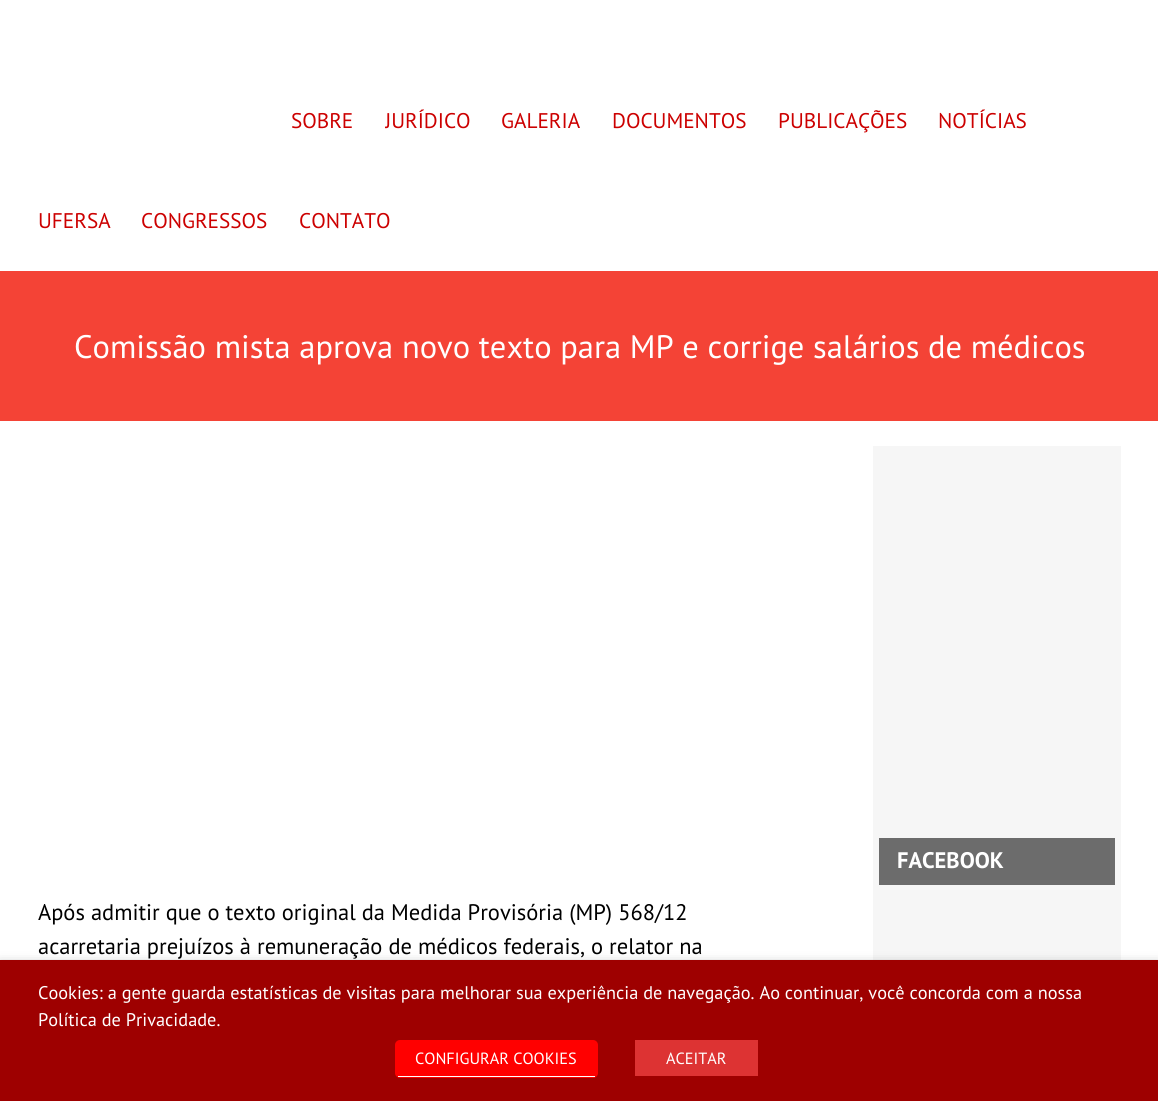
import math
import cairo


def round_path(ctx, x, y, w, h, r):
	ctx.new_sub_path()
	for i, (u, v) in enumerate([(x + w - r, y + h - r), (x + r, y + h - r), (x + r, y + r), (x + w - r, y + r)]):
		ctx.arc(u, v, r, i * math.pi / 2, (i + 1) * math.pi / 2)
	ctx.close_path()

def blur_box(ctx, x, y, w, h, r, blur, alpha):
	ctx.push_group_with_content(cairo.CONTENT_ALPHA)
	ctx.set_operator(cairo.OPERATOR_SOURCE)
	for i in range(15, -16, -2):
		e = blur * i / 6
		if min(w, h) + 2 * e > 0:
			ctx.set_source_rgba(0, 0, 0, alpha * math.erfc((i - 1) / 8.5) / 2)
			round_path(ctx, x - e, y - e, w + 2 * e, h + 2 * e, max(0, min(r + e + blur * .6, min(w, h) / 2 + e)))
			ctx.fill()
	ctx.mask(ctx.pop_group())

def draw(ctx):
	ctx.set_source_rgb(1, 1, 1)
	ctx.paint()
	ctx.select_font_face('PT Sans')
	ctx.set_font_size(21.25)
	ctx.set_source_rgb(0.8, 0, 0)
	ctx.move_to(291, 128)
	ctx.show_text('SOBRE')
	ctx.save()
	ctx.rectangle(385, 71, 116, 100)
	ctx.clip()
	ctx.move_to(385, 128)
	ctx.show_text('JURÍDICO')
	ctx.restore()
	for x, y, s in [
		(501, 128, 'GALERIA'),
		(612, 128, 'DOCUMENTOS'),
		(778, 128, 'PUBLICAÇÕES'),
		(938, 128, 'NOTÍCIAS'),
		(38, 228, 'UFERSA'),
		(141, 228, 'CONGRESSOS'),
		(299, 228, 'CONTATO'),
	]:
		ctx.move_to(x, y)
		ctx.show_text(s)
	ctx.set_source_rgb(0.957, 0.263, 0.212)
	ctx.rectangle(0, 271, 1158, 150)
	ctx.fill()
	ctx.set_font_size(32.5)
	ctx.set_source_rgb(1, 1, 1)
	ctx.move_to(74, 358)
	ctx.show_text('Comissão mista aprova novo texto para MP e corrige salários de médicos')
	ctx.set_source_rgb(0.961, 0.961, 0.961)
	ctx.rectangle(873, 446, 248, 514)
	ctx.fill()
	ctx.set_source_rgb(0.424, 0.424, 0.424)
	ctx.rectangle(879, 838, 236, 47)
	ctx.fill()
	ctx.select_font_face('PT Sans', cairo.FONT_SLANT_NORMAL, cairo.FONT_WEIGHT_BOLD)
	ctx.set_font_size(22.5)
	ctx.set_source_rgb(1, 1, 1)
	ctx.move_to(897, 868)
	ctx.show_text('FACEBOOK')
	ctx.select_font_face('PT Sans')
	ctx.set_source_rgb(0, 0, 0)
	ctx.move_to(38, 920)
	ctx.show_text('Após admitir que o texto original da Medida Provisória (MP) 568/12')
	ctx.move_to(38, 954)
	ctx.show_text('acarretaria prejuízos à remuneração de médicos federais, o relator na')
	ctx.set_source_rgb(0, 0, 0)
	blur_box(ctx, 0, 966, 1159, 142, 0, 6, 0.5)
	ctx.set_source_rgb(0.62, 0, 0)
	ctx.rectangle(0, 960, 1158, 141)
	ctx.fill()
	ctx.set_font_size(18.33)
	ctx.set_source_rgb(1, 1, 1)
	ctx.move_to(38, 999)
	ctx.show_text('Cookies: a gente guarda estatísticas de visitas para melhorar sua experiência de navegação. Ao continuar, você concorda com a nossa')
	ctx.move_to(38, 1026)
	ctx.show_text('Política de Privacidade.')
	ctx.set_source_rgb(1, 0, 0)
	round_path(ctx, 395, 1040, 203, 38, 5)
	ctx.fill()
	ctx.set_source_rgb(1, 1, 1)
	ctx.rectangle(398, 1076, 197, 1)
	ctx.fill()
	ctx.set_font_size(16.25)
	ctx.move_to(415, 1064)
	ctx.show_text('CONFIGURAR COOKIES')
	ctx.set_source_rgb(0.867, 0.2, 0.2)
	ctx.rectangle(635, 1040, 123, 36)
	ctx.fill()
	ctx.set_source_rgb(1, 1, 1)
	ctx.move_to(666, 1064)
	ctx.show_text('ACEITAR')


surface = cairo.ImageSurface(cairo.FORMAT_RGB24, 1158, 1101)
ctx = cairo.Context(surface)
options = cairo.FontOptions()
options.set_hint_metrics(cairo.HINT_METRICS_OFF)
options.set_hint_style(cairo.HINT_STYLE_NONE)
ctx.set_font_options(options)
ctx.set_miter_limit(4)
draw(ctx)
surface.write_to_png('image.png')
